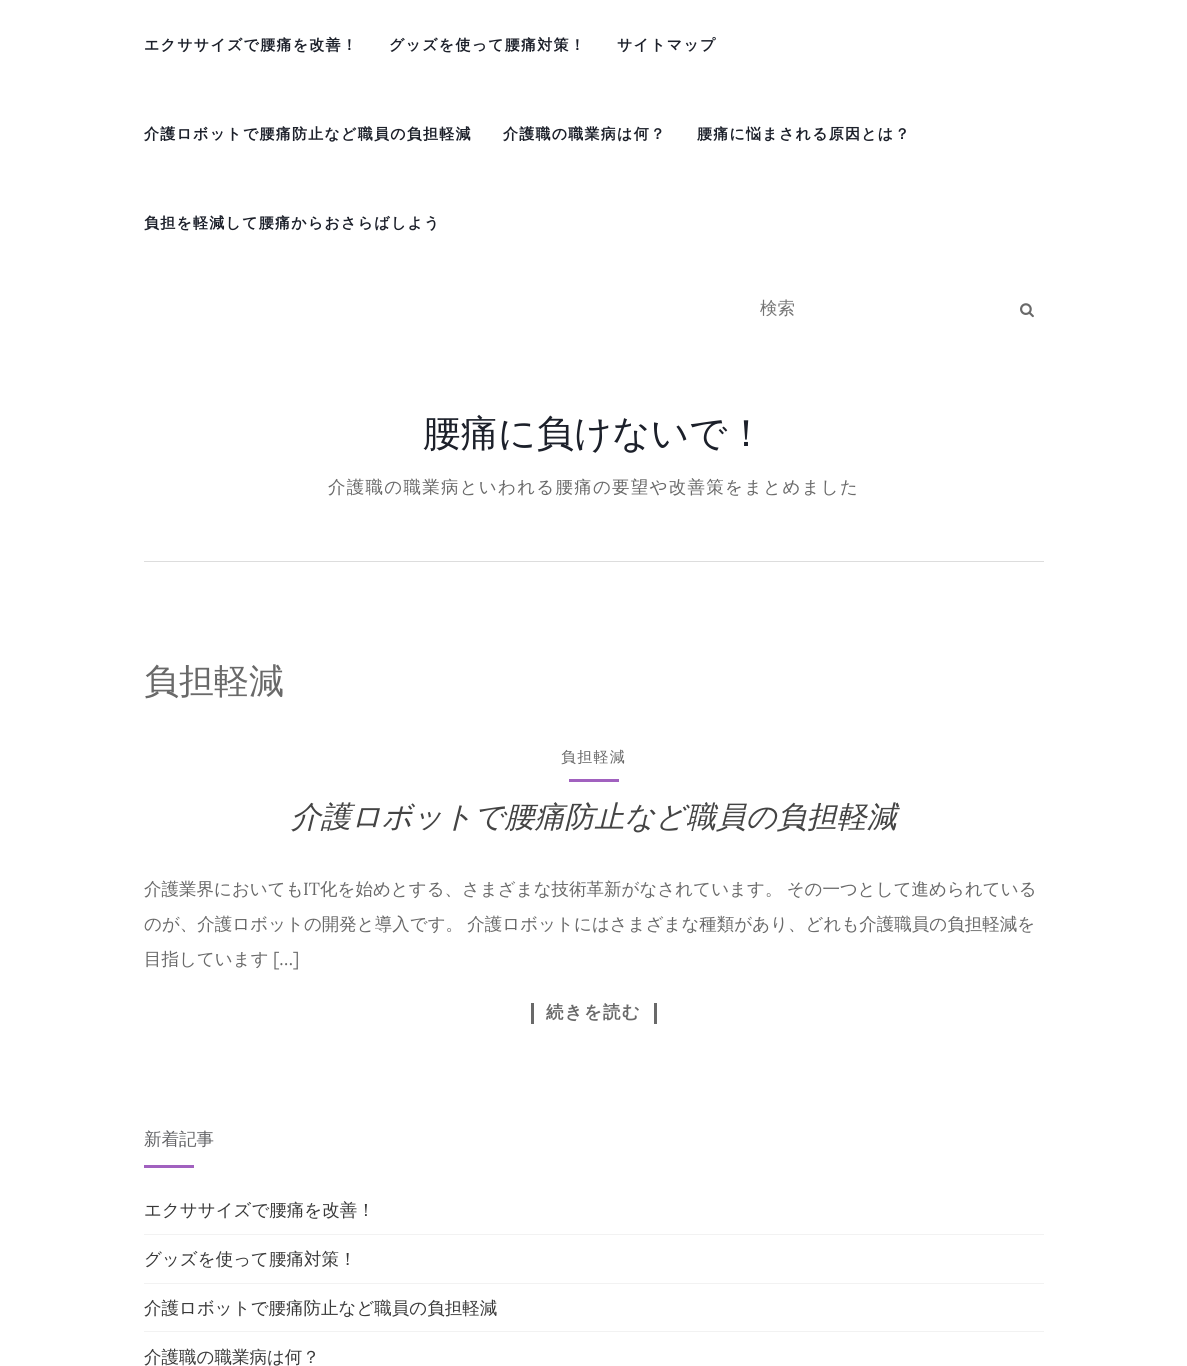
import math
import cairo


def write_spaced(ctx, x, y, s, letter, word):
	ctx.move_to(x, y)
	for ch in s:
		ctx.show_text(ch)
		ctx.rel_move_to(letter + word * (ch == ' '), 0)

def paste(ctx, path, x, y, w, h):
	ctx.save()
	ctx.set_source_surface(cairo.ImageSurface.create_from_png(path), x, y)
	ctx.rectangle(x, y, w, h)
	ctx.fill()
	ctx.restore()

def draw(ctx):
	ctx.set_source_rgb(1, 1, 1)
	ctx.paint()
	ctx.select_font_face('WenQuanYi Zen Hei', cairo.FONT_SLANT_NORMAL, cairo.FONT_WEIGHT_BOLD)
	ctx.set_font_size(15)
	ctx.set_source_rgb(0.11, 0.125, 0.165)
	for x, y, s in [
		(144, 50, 'エクササイズで腰痛を改善！'),
		(389, 50, 'グッズを使って腰痛対策！'),
		(617, 50, 'サイトマップ'),
		(144, 139, '介護ロボットで腰痛防止など職員の負担軽減'),
		(503, 139, '介護職の職業病は何？'),
		(697, 139, '腰痛に悩まされる原因とは？'),
		(144, 228, '負担を軽減して腰痛からおさらばしよう'),
	]:
		write_spaced(ctx, x, y, s, 1.25, 0)
	ctx.select_font_face('WenQuanYi Zen Hei Medium')
	ctx.set_font_size(17.5)
	ctx.set_source_rgb(0.459, 0.459, 0.459)
	ctx.move_to(760, 314)
	ctx.show_text('検索')
	paste(ctx, 'media/1.png', 1020, 303, 14, 15)
	ctx.set_font_size(37.5)
	ctx.set_source_rgb(0.11, 0.125, 0.165)
	ctx.move_to(423, 446)
	ctx.show_text('腰痛に負けないで！')
	ctx.set_font_size(17.5)
	ctx.set_source_rgb(0.412, 0.412, 0.412)
	write_spaced(ctx, 328, 493, '介護職の職業病といわれる腰痛の要望や改善策をまとめました', 1.25, 0)
	ctx.set_source_rgb(0.867, 0.867, 0.867)
	ctx.rectangle(144, 561, 900, 1)
	ctx.fill()
	ctx.set_font_size(35)
	ctx.set_source_rgb(0.412, 0.412, 0.412)
	ctx.move_to(144, 693)
	ctx.show_text('負担軽減')
	ctx.set_font_size(15)
	write_spaced(ctx, 561, 762, '負担軽減', 1.25, 0)
	ctx.set_source_rgb(0.631, 0.38, 0.749)
	ctx.rectangle(569, 779, 50, 3)
	ctx.fill()
	ctx.select_font_face('WenQuanYi Zen Hei Medium', cairo.FONT_SLANT_ITALIC)
	ctx.set_font_size(30)
	ctx.set_source_rgb(0.267, 0.267, 0.267)
	ctx.move_to(291, 827)
	ctx.show_text('介護ロボットで腰痛防止など職員の負担軽減')
	ctx.select_font_face('WenQuanYi Zen Hei Medium')
	ctx.set_font_size(17.5)
	ctx.set_source_rgb(0.412, 0.412, 0.412)
	ctx.move_to(144, 895)
	ctx.show_text('介護業界においても')
	ctx.select_font_face('Lora')
	ctx.move_to(303, 895)
	ctx.show_text('IT')
	ctx.select_font_face('WenQuanYi Zen Hei Medium')
	write_spaced(ctx, 320, 895, '化を始めとする、さまざまな技術革新がなされています。 その一つとして進められている', 0, -1)
	write_spaced(ctx, 144, 930, 'のが、介護ロボットの開発と導入です。 介護ロボットにはさまざまな種類があり、どれも介護職員の負担軽減を', 0, -1)
	ctx.move_to(144, 965)
	ctx.show_text('目指しています')
	ctx.select_font_face('Lora')
	ctx.move_to(273, 965)
	ctx.show_text('[…]')
	ctx.rectangle(654, 1003, 3, 21)
	ctx.fill()
	ctx.rectangle(531, 1003, 3, 21)
	ctx.fill()
	ctx.select_font_face('WenQuanYi Zen Hei', cairo.FONT_SLANT_NORMAL, cairo.FONT_WEIGHT_BOLD)
	write_spaced(ctx, 546, 1018, '続きを読む', 1.25, 0)
	ctx.select_font_face('WenQuanYi Zen Hei Medium')
	ctx.set_source_rgb(0.388, 0.392, 0.404)
	ctx.move_to(144, 1145)
	ctx.show_text('新着記事')
	ctx.set_source_rgb(0.631, 0.38, 0.749)
	ctx.rectangle(144, 1165, 50, 3)
	ctx.fill()
	ctx.set_source_rgb(0.949, 0.949, 0.949)
	ctx.rectangle(144, 1234, 900, 1)
	ctx.fill()
	ctx.set_source_rgb(0.224, 0.224, 0.224)
	ctx.move_to(144, 1216)
	ctx.show_text('エクササイズで腰痛を改善！')
	ctx.set_source_rgb(0.949, 0.949, 0.949)
	ctx.rectangle(144, 1283, 900, 1)
	ctx.fill()
	ctx.set_source_rgb(0.224, 0.224, 0.224)
	ctx.move_to(144, 1265)
	ctx.show_text('グッズを使って腰痛対策！')
	ctx.set_source_rgb(0.949, 0.949, 0.949)
	ctx.rectangle(144, 1331, 900, 1)
	ctx.fill()
	ctx.set_source_rgb(0.224, 0.224, 0.224)
	ctx.move_to(144, 1314)
	ctx.show_text('介護ロボットで腰痛防止など職員の負担軽減')
	ctx.move_to(144, 1363)
	ctx.show_text('介護職の職業病は何？')


surface = cairo.ImageSurface(cairo.FORMAT_RGB24, 1187, 1366)
ctx = cairo.Context(surface)
options = cairo.FontOptions()
options.set_hint_metrics(cairo.HINT_METRICS_OFF)
options.set_hint_style(cairo.HINT_STYLE_NONE)
ctx.set_font_options(options)
ctx.set_miter_limit(4)
draw(ctx)
surface.write_to_png('image.png')
